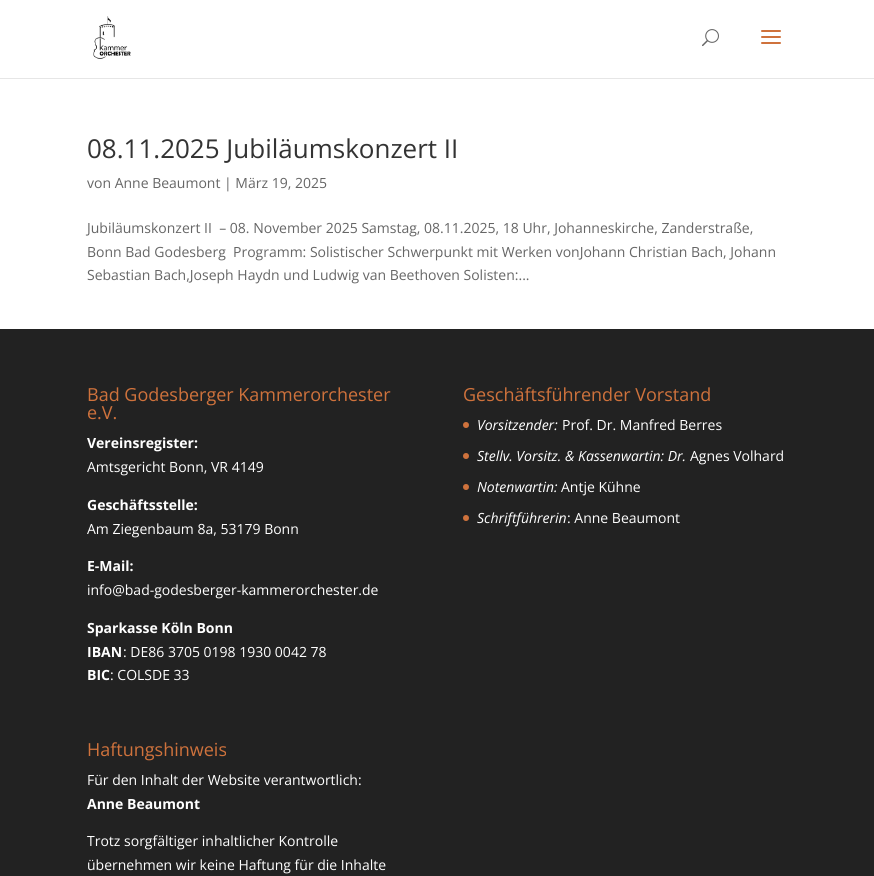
import math
import cairo


def paste(ctx, path, x, y, w, h):
	ctx.save()
	ctx.set_source_surface(cairo.ImageSurface.create_from_png(path), x, y)
	ctx.rectangle(x, y, w, h)
	ctx.fill()
	ctx.restore()

def draw(ctx):
	ctx.set_source_rgb(1, 1, 1)
	ctx.paint()
	ctx.set_source_rgb(0.902, 0.902, 0.902)
	ctx.rectangle(0, 78, 874, 1)
	ctx.fill()
	paste(ctx, 'media/1.png', 93, 16, 38, 43)
	paste(ctx, 'media/2.png', 702, 29, 17, 18)
	paste(ctx, 'media/3.png', 761, 30, 20, 14)
	ctx.select_font_face('Open Sans')
	ctx.set_font_size(26)
	ctx.set_source_rgb(0.2, 0.2, 0.2)
	ctx.move_to(87, 158)
	ctx.show_text('08.11.2025 Jubiläumskonzert II')
	ctx.set_font_size(14)
	ctx.set_source_rgb(0.4, 0.4, 0.4)
	for x, y, s in [
		(87, 188, 'von Anne Beaumont | März 19, 2025'),
		(87, 233, 'Jubiläumskonzert II  – 08. November 2025 Samstag, 08.11.2025, 18 Uhr, Johanneskirche, Zanderstraße,'),
		(87, 257, 'Bonn Bad Godesberg  Programm: Solistischer Schwerpunkt mit Werken vonJohann Christian Bach, Johann'),
		(87, 280, 'Sebastian Bach,Joseph Haydn und Ludwig van Beethoven Solisten:...'),
	]:
		ctx.move_to(x, y)
		ctx.show_text(s)
	ctx.set_source_rgb(0.133, 0.133, 0.133)
	ctx.rectangle(0, 329, 874, 547)
	ctx.fill()
	ctx.set_font_size(18)
	ctx.set_source_rgb(0.812, 0.447, 0.235)
	ctx.move_to(87, 401)
	ctx.show_text('Bad Godesberger Kammerorchester')
	ctx.move_to(87, 419)
	ctx.show_text('e.V.')
	ctx.select_font_face('Open Sans', cairo.FONT_SLANT_NORMAL, cairo.FONT_WEIGHT_BOLD)
	ctx.set_font_size(14)
	ctx.set_source_rgb(1, 1, 1)
	ctx.move_to(87, 448)
	ctx.show_text('Vereinsregister:')
	ctx.select_font_face('Open Sans')
	ctx.move_to(87, 472)
	ctx.show_text('Amtsgericht Bonn, VR 4149')
	ctx.select_font_face('Open Sans', cairo.FONT_SLANT_NORMAL, cairo.FONT_WEIGHT_BOLD)
	ctx.move_to(87, 510)
	ctx.show_text('Geschäftsstelle:')
	ctx.select_font_face('Open Sans')
	ctx.move_to(87, 534)
	ctx.show_text('Am Ziegenbaum 8a, 53179 Bonn')
	ctx.select_font_face('Open Sans', cairo.FONT_SLANT_NORMAL, cairo.FONT_WEIGHT_BOLD)
	ctx.move_to(87, 571)
	ctx.show_text('E-Mail:')
	ctx.select_font_face('Open Sans')
	ctx.move_to(87, 595)
	ctx.show_text('info@bad-godesberger-kammerorchester.de')
	ctx.select_font_face('Open Sans', cairo.FONT_SLANT_NORMAL, cairo.FONT_WEIGHT_BOLD)
	ctx.move_to(87, 633)
	ctx.show_text('Sparkasse Köln Bonn')
	ctx.move_to(87, 657)
	ctx.show_text('IBAN')
	ctx.select_font_face('Open Sans')
	ctx.move_to(123, 657)
	ctx.show_text(': DE86 3705 0198 1930 0042 78')
	ctx.select_font_face('Open Sans', cairo.FONT_SLANT_NORMAL, cairo.FONT_WEIGHT_BOLD)
	ctx.move_to(87, 680)
	ctx.show_text('BIC')
	ctx.select_font_face('Open Sans')
	ctx.move_to(110, 680)
	ctx.show_text(': COLSDE 33')
	ctx.set_font_size(18)
	ctx.set_source_rgb(0.812, 0.447, 0.235)
	ctx.move_to(463, 401)
	ctx.show_text('Geschäftsführender Vorstand')
	ctx.new_path()
	ctx.arc(466, 425, 3, 0, 2 * math.pi)
	ctx.fill()
	ctx.select_font_face('Open Sans', cairo.FONT_SLANT_ITALIC)
	ctx.set_font_size(14)
	ctx.set_source_rgb(1, 1, 1)
	ctx.move_to(477, 430)
	ctx.show_text('Vorsitzender:')
	ctx.select_font_face('Open Sans')
	ctx.move_to(562, 430)
	ctx.show_text('Prof. Dr. Manfred Berres')
	ctx.set_source_rgb(0.812, 0.447, 0.235)
	ctx.new_path()
	ctx.arc(466, 456, 3, 0, 2 * math.pi)
	ctx.fill()
	ctx.select_font_face('Open Sans', cairo.FONT_SLANT_ITALIC)
	ctx.set_source_rgb(1, 1, 1)
	ctx.move_to(477, 461)
	ctx.show_text('Stellv. Vorsitz. & Kassenwartin: Dr.')
	ctx.select_font_face('Open Sans')
	ctx.move_to(690, 461)
	ctx.show_text('Agnes Volhard')
	ctx.set_source_rgb(0.812, 0.447, 0.235)
	ctx.new_path()
	ctx.arc(466, 487, 3, 0, 2 * math.pi)
	ctx.fill()
	ctx.select_font_face('Open Sans', cairo.FONT_SLANT_ITALIC)
	ctx.set_source_rgb(1, 1, 1)
	ctx.move_to(477, 492)
	ctx.show_text('Notenwartin:')
	ctx.select_font_face('Open Sans')
	ctx.move_to(561, 492)
	ctx.show_text('Antje Kühne')
	ctx.set_source_rgb(0.812, 0.447, 0.235)
	ctx.new_path()
	ctx.arc(466, 518, 3, 0, 2 * math.pi)
	ctx.fill()
	ctx.select_font_face('Open Sans', cairo.FONT_SLANT_ITALIC)
	ctx.set_source_rgb(1, 1, 1)
	ctx.move_to(477, 523)
	ctx.show_text('Schriftführerin')
	ctx.select_font_face('Open Sans')
	ctx.move_to(567, 523)
	ctx.show_text(': Anne Beaumont')
	ctx.set_font_size(18)
	ctx.set_source_rgb(0.812, 0.447, 0.235)
	ctx.move_to(87, 756)
	ctx.show_text('Haftungshinweis')
	ctx.set_font_size(14)
	ctx.set_source_rgb(1, 1, 1)
	ctx.move_to(87, 785)
	ctx.show_text('Für den Inhalt der Website verantwortlich:')
	ctx.select_font_face('Open Sans', cairo.FONT_SLANT_NORMAL, cairo.FONT_WEIGHT_BOLD)
	ctx.move_to(87, 809)
	ctx.show_text('Anne Beaumont')
	ctx.select_font_face('Open Sans')
	ctx.move_to(87, 846)
	ctx.show_text('Trotz sorgfältiger inhaltlicher Kontrolle')
	ctx.move_to(87, 870)
	ctx.show_text('übernehmen wir keine Haftung für die Inhalte')


surface = cairo.ImageSurface(cairo.FORMAT_RGB24, 874, 876)
ctx = cairo.Context(surface)
options = cairo.FontOptions()
options.set_hint_metrics(cairo.HINT_METRICS_OFF)
options.set_hint_style(cairo.HINT_STYLE_NONE)
ctx.set_font_options(options)
ctx.set_miter_limit(4)
draw(ctx)
surface.write_to_png('image.png')
